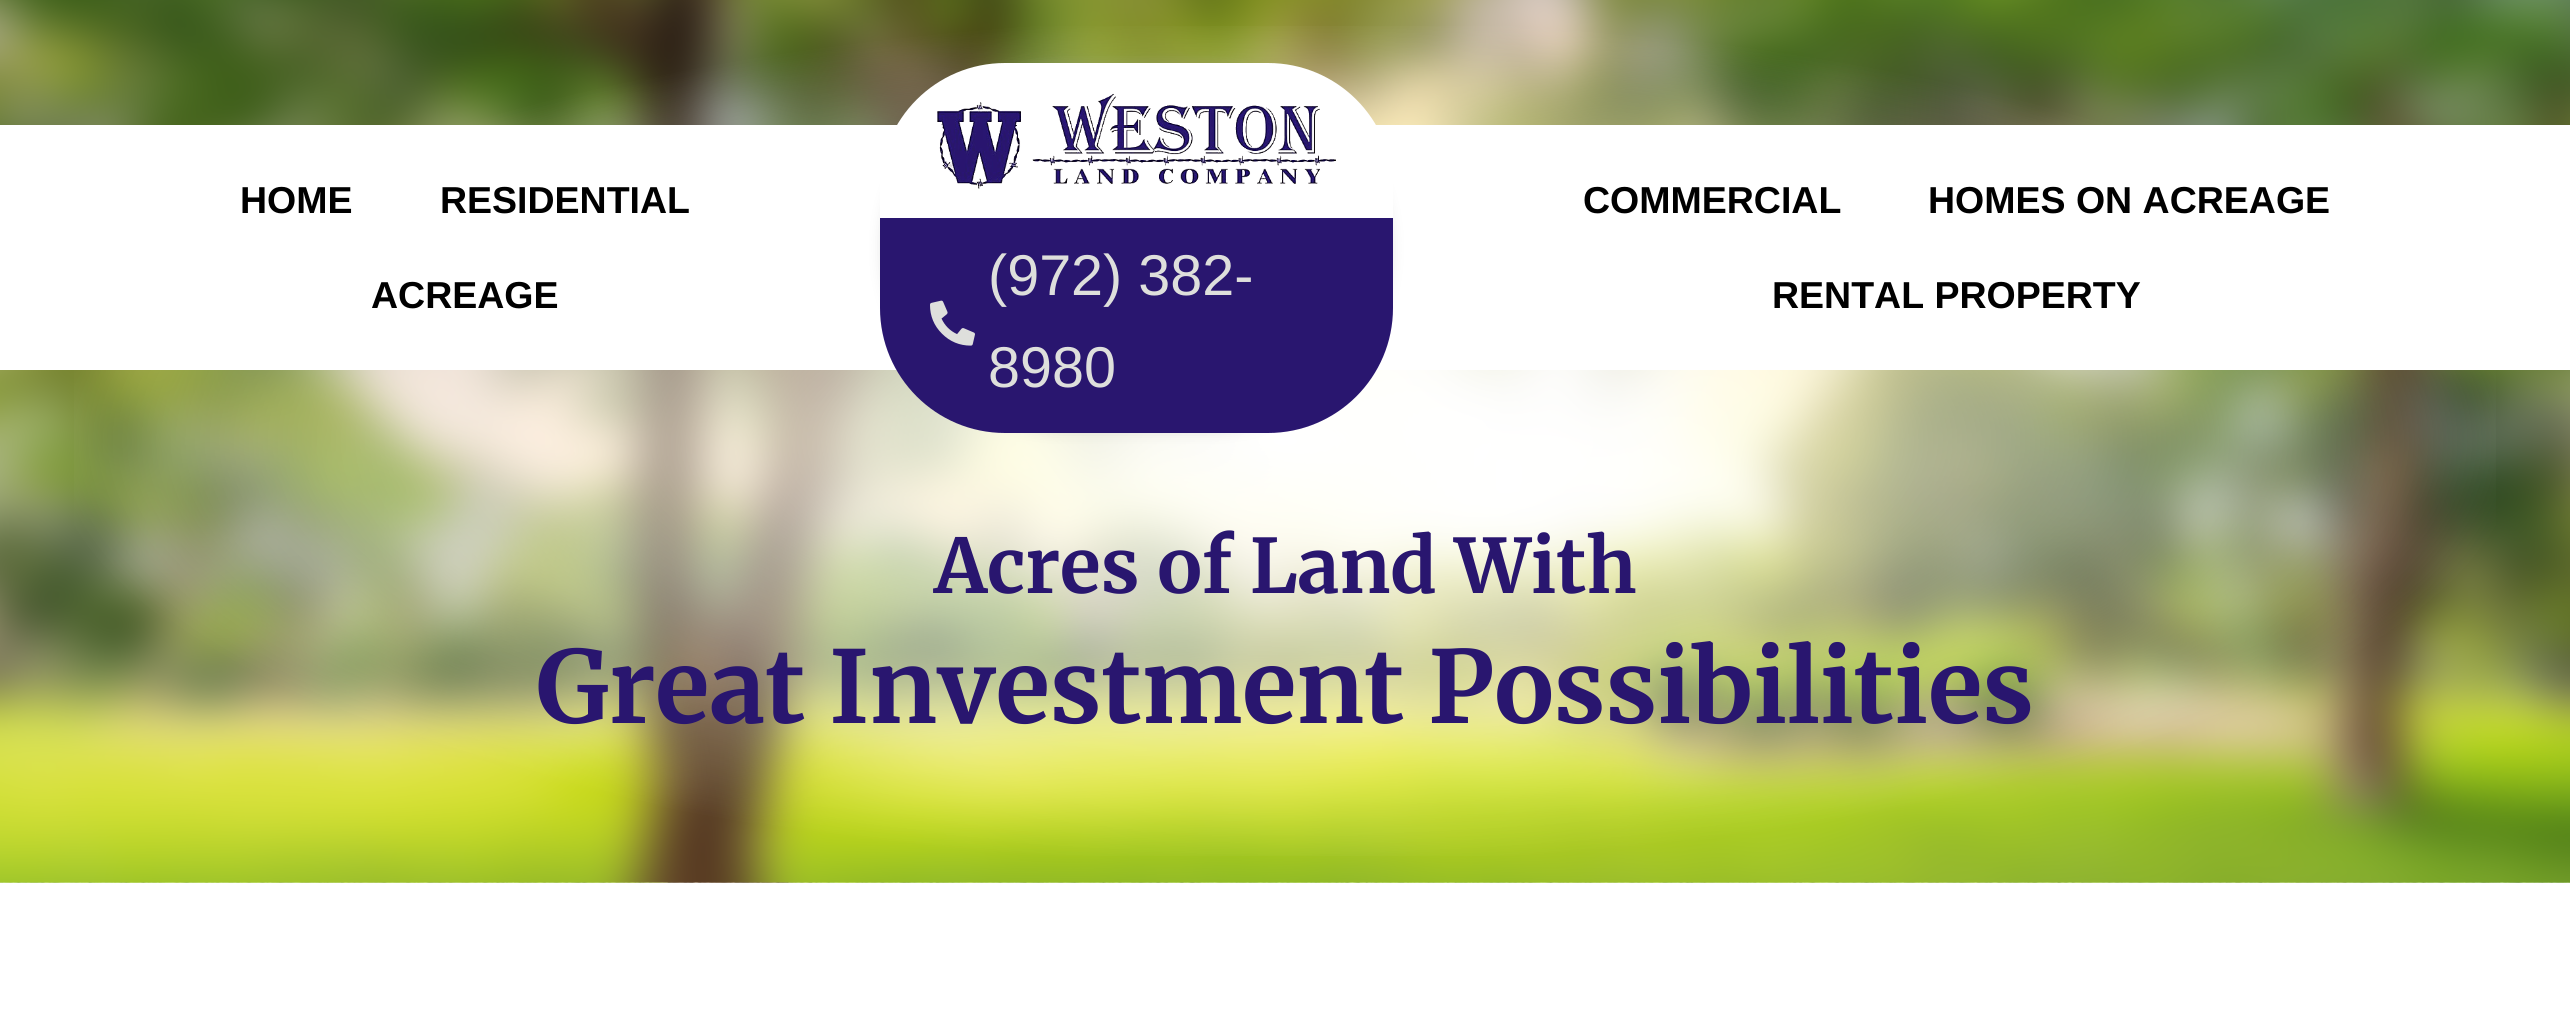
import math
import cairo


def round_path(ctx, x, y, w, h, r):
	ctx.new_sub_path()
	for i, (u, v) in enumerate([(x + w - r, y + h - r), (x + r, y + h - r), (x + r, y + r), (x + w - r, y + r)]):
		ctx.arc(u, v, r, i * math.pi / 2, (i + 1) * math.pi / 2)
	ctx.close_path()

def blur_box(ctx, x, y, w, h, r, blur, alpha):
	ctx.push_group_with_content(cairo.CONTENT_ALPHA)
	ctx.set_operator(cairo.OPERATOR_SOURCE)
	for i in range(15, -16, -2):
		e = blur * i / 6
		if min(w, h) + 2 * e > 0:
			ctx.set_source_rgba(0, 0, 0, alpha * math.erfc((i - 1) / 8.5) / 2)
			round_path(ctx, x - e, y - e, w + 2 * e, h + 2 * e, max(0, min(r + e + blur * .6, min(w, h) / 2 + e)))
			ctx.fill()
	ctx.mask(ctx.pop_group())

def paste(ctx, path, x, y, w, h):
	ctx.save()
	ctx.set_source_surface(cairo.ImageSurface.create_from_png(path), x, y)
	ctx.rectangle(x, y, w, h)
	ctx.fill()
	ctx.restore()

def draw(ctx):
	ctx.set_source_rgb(1, 1, 1)
	ctx.paint()
	paste(ctx, 'media/3.png', 0, 882, 2570, 1)
	paste(ctx, 'media/4.png', 0, 0, 2570, 883)
	gradient = cairo.RadialGradient(0, 0, 0, 0, 0, 1)
	gradient.set_matrix(cairo.Matrix(1 / 1817, 0, 0, 1 / 624, -1 * 1285 / 1817, -1 * 441 / 624))
	gradient.add_color_stop_rgba(0, 1, 1, 1, 1)
	gradient.add_color_stop_rgba(0.68, 1, 1, 1, 0)
	ctx.set_source(gradient)
	ctx.rectangle(74, 26, 2422, 830)
	ctx.fill()
	ctx.set_source_rgb(1, 1, 1)
	ctx.rectangle(0, 125, 2570, 245)
	ctx.fill()
	ctx.select_font_face('Liberation Sans', cairo.FONT_SLANT_NORMAL, cairo.FONT_WEIGHT_BOLD)
	ctx.set_font_size(37.5)
	ctx.set_source_rgb(0, 0, 0)
	for x, y, s in [
		(240, 213, 'HOME'),
		(440, 213, 'RESIDENTIAL'),
		(371, 308, 'ACREAGE'),
	]:
		ctx.move_to(x, y)
		ctx.show_text(s)
	ctx.set_source_rgb(0.659, 0.659, 0.659)
	blur_box(ctx, 880, 63, 513, 370, 185, 6, 0.25)
	ctx.set_source_rgb(1, 1, 1)
	ctx.new_path()
	ctx.move_to(1005, 63)
	ctx.line_to(1268, 63)
	ctx.curve_to(1337, 63, 1393, 119, 1393, 188)
	ctx.line_to(1393, 218)
	ctx.line_to(880, 218)
	ctx.line_to(880, 188)
	ctx.curve_to(880, 119, 936, 63, 1005, 63)
	ctx.close_path()
	ctx.fill()
	paste(ctx, 'media/1.png', 937, 93, 399, 96)
	ctx.set_source_rgb(0.161, 0.086, 0.435)
	ctx.new_path()
	ctx.move_to(880, 218)
	ctx.line_to(1393, 218)
	ctx.line_to(1393, 308)
	ctx.curve_to(1393, 377, 1337, 433, 1268, 433)
	ctx.line_to(1005, 433)
	ctx.curve_to(936, 433, 880, 377, 880, 308)
	ctx.close_path()
	ctx.fill()
	paste(ctx, 'media/2.png', 930, 300, 45, 46)
	ctx.select_font_face('Liberation Sans')
	ctx.set_font_size(57.5)
	ctx.set_source_rgb(0.871, 0.875, 0.863)
	ctx.move_to(988, 295)
	ctx.show_text('(972) 382-')
	ctx.move_to(988, 387)
	ctx.show_text('8980')
	ctx.select_font_face('Liberation Sans', cairo.FONT_SLANT_NORMAL, cairo.FONT_WEIGHT_BOLD)
	ctx.set_font_size(37.5)
	ctx.set_source_rgb(0, 0, 0)
	for x, y, s in [
		(1583, 213, 'COMMERCIAL'),
		(1928, 213, 'HOMES ON ACREAGE'),
		(1772, 308, 'RENTAL PROPERTY'),
	]:
		ctx.move_to(x, y)
		ctx.show_text(s)
	ctx.select_font_face('Merriweather Light')
	ctx.set_font_size(75)
	ctx.set_source_rgb(0.161, 0.086, 0.435)
	ctx.move_to(934, 593)
	ctx.show_text('Acres of Land With')
	ctx.set_font_size(100)
	ctx.move_to(536, 723)
	ctx.show_text('Great Investment Possibilities')


surface = cairo.ImageSurface(cairo.FORMAT_RGB24, 2570, 1022)
ctx = cairo.Context(surface)
options = cairo.FontOptions()
options.set_hint_metrics(cairo.HINT_METRICS_OFF)
options.set_hint_style(cairo.HINT_STYLE_NONE)
ctx.set_font_options(options)
ctx.set_miter_limit(4)
draw(ctx)
surface.write_to_png('image.png')
